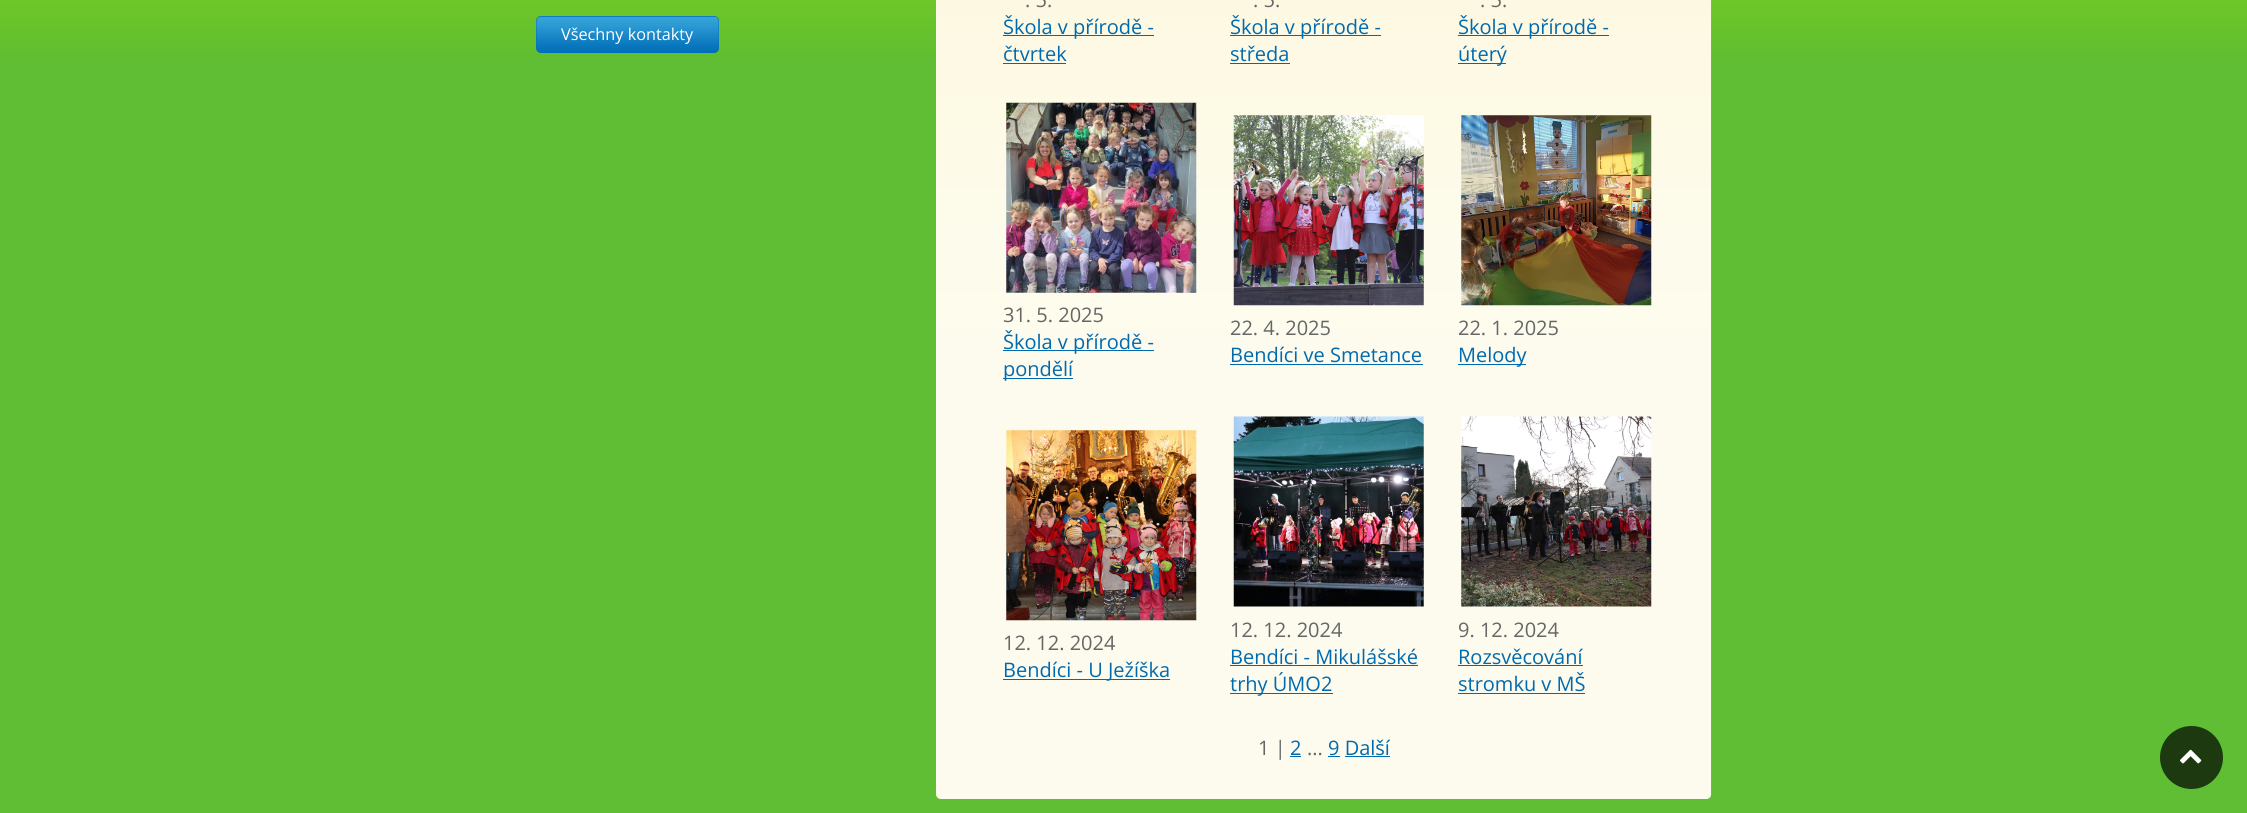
import math
import cairo


def round_path(ctx, x, y, w, h, r):
	ctx.new_sub_path()
	for i, (u, v) in enumerate([(x + w - r, y + h - r), (x + r, y + h - r), (x + r, y + r), (x + w - r, y + r)]):
		ctx.arc(u, v, r, i * math.pi / 2, (i + 1) * math.pi / 2)
	ctx.close_path()

def paste(ctx, path, x, y, w, h):
	ctx.save()
	ctx.set_source_surface(cairo.ImageSurface.create_from_png(path), x, y)
	ctx.rectangle(x, y, w, h)
	ctx.fill()
	ctx.restore()

def draw(ctx):
	ctx.set_source_rgb(0.373, 0.745, 0.204)
	ctx.paint()
	paste(ctx, 'media/1.png', 0, 0, 2247, 58)
	ctx.set_source_rgb(0.004, 0.439, 0.725)
	round_path(ctx, 536, 16, 183, 37, 5)
	ctx.fill()
	paste(ctx, 'media/2.png', 536, 16, 183, 37)
	ctx.select_font_face('Open Sans')
	ctx.set_font_size(16.25)
	ctx.set_source_rgb(1, 1, 1)
	ctx.move_to(561, 40)
	ctx.show_text('Všechny kontakty')
	ctx.set_source_rgb(0.992, 0.976, 0.902)
	round_path(ctx, 936, -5, 775, 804, 5)
	ctx.fill()
	paste(ctx, 'media/3.png', 936, 0, 776, 799)
	ctx.set_font_size(20)
	ctx.set_source_rgb(0.4, 0.4, 0.4)
	ctx.move_to(1025, 7)
	ctx.show_text('. 5.')
	ctx.set_source_rgb(0, 0.416, 0.686)
	ctx.rectangle(1003, 35, 151, 1)
	ctx.fill()
	ctx.move_to(1003, 34)
	ctx.show_text('Škola v přírodě -')
	ctx.move_to(1003, 61)
	ctx.show_text('čtvrtek')
	ctx.rectangle(1003, 63, 63, 1)
	ctx.fill()
	ctx.set_source_rgb(0.4, 0.4, 0.4)
	ctx.move_to(1253, 7)
	ctx.show_text('. 5.')
	ctx.set_source_rgb(0, 0.416, 0.686)
	ctx.rectangle(1230, 35, 151, 1)
	ctx.fill()
	ctx.move_to(1230, 34)
	ctx.show_text('Škola v přírodě -')
	ctx.move_to(1230, 61)
	ctx.show_text('středa')
	ctx.rectangle(1230, 63, 60, 1)
	ctx.fill()
	ctx.set_source_rgb(0.4, 0.4, 0.4)
	ctx.move_to(1480, 7)
	ctx.show_text('. 5.')
	ctx.set_source_rgb(0, 0.416, 0.686)
	ctx.rectangle(1458, 35, 151, 1)
	ctx.fill()
	ctx.move_to(1458, 34)
	ctx.show_text('Škola v přírodě -')
	ctx.rectangle(1458, 63, 48, 1)
	ctx.fill()
	ctx.move_to(1458, 61)
	ctx.show_text('úterý')
	paste(ctx, 'media/4.png', 1006, 102, 191, 191)
	ctx.set_source_rgb(0.4, 0.4, 0.4)
	ctx.move_to(1003, 322)
	ctx.show_text('31. 5. 2025')
	ctx.set_source_rgb(0, 0.416, 0.686)
	ctx.rectangle(1003, 350, 151, 1)
	ctx.fill()
	ctx.move_to(1003, 349)
	ctx.show_text('Škola v přírodě -')
	ctx.rectangle(1003, 378, 70, 1)
	ctx.fill()
	ctx.move_to(1003, 376)
	ctx.show_text('pondělí')
	paste(ctx, 'media/5.png', 1233, 115, 191, 191)
	ctx.set_source_rgb(0.4, 0.4, 0.4)
	ctx.move_to(1230, 335)
	ctx.show_text('22. 4. 2025')
	ctx.set_source_rgb(0, 0.416, 0.686)
	ctx.move_to(1230, 362)
	ctx.show_text('Bendíci ve Smetance')
	ctx.rectangle(1230, 364, 193, 1)
	ctx.fill()
	paste(ctx, 'media/6.png', 1461, 115, 191, 191)
	ctx.set_source_rgb(0.4, 0.4, 0.4)
	ctx.move_to(1458, 335)
	ctx.show_text('22. 1. 2025')
	ctx.set_source_rgb(0, 0.416, 0.686)
	ctx.rectangle(1458, 364, 68, 1)
	ctx.fill()
	ctx.move_to(1458, 362)
	ctx.show_text('Melody')
	paste(ctx, 'media/7.png', 1006, 430, 191, 191)
	ctx.set_source_rgb(0.4, 0.4, 0.4)
	ctx.move_to(1003, 650)
	ctx.show_text('12. 12. 2024')
	ctx.set_source_rgb(0, 0.416, 0.686)
	ctx.rectangle(1003, 679, 167, 1)
	ctx.fill()
	ctx.move_to(1003, 677)
	ctx.show_text('Bendíci - U Ježíška')
	paste(ctx, 'media/8.png', 1233, 416, 191, 191)
	ctx.set_source_rgb(0.4, 0.4, 0.4)
	ctx.move_to(1230, 637)
	ctx.show_text('12. 12. 2024')
	ctx.set_source_rgb(0, 0.416, 0.686)
	ctx.move_to(1230, 664)
	ctx.show_text('Bendíci - Mikulášské')
	ctx.rectangle(1230, 665, 188, 1)
	ctx.fill()
	ctx.rectangle(1230, 693, 103, 1)
	ctx.fill()
	ctx.move_to(1230, 691)
	ctx.show_text('trhy ÚMO2')
	paste(ctx, 'media/9.png', 1461, 416, 191, 191)
	ctx.set_source_rgb(0.4, 0.4, 0.4)
	ctx.move_to(1458, 637)
	ctx.show_text('9. 12. 2024')
	ctx.set_source_rgb(0, 0.416, 0.686)
	ctx.move_to(1458, 664)
	ctx.show_text('Rozsvěcování')
	ctx.rectangle(1458, 665, 125, 1)
	ctx.fill()
	ctx.move_to(1458, 691)
	ctx.show_text('stromku v MŠ')
	ctx.rectangle(1458, 693, 127, 1)
	ctx.fill()
	ctx.set_source_rgb(0.4, 0.4, 0.4)
	ctx.move_to(1258, 755)
	ctx.show_text('1 |')
	ctx.set_source_rgb(0, 0.416, 0.686)
	ctx.move_to(1290, 755)
	ctx.show_text('2')
	ctx.rectangle(1290, 756, 11, 1)
	ctx.fill()
	ctx.set_source_rgb(0.4, 0.4, 0.4)
	ctx.move_to(1307, 755)
	ctx.show_text('...')
	ctx.set_source_rgb(0, 0.416, 0.686)
	ctx.move_to(1328, 755)
	ctx.show_text('9 Další')
	ctx.rectangle(1328, 756, 12, 1)
	ctx.fill()
	ctx.rectangle(1345, 756, 45, 1)
	ctx.fill()
	ctx.set_source_rgb(0.114, 0.224, 0.063)
	ctx.arc(2191.5, 757.5, 31.5, 0, 2 * math.pi)
	ctx.fill()
	paste(ctx, 'media/10.png', 2180, 749, 22, 15)


surface = cairo.ImageSurface(cairo.FORMAT_RGB24, 2247, 813)
ctx = cairo.Context(surface)
options = cairo.FontOptions()
options.set_hint_metrics(cairo.HINT_METRICS_OFF)
options.set_hint_style(cairo.HINT_STYLE_NONE)
ctx.set_font_options(options)
ctx.set_miter_limit(4)
draw(ctx)
surface.write_to_png('image.png')
